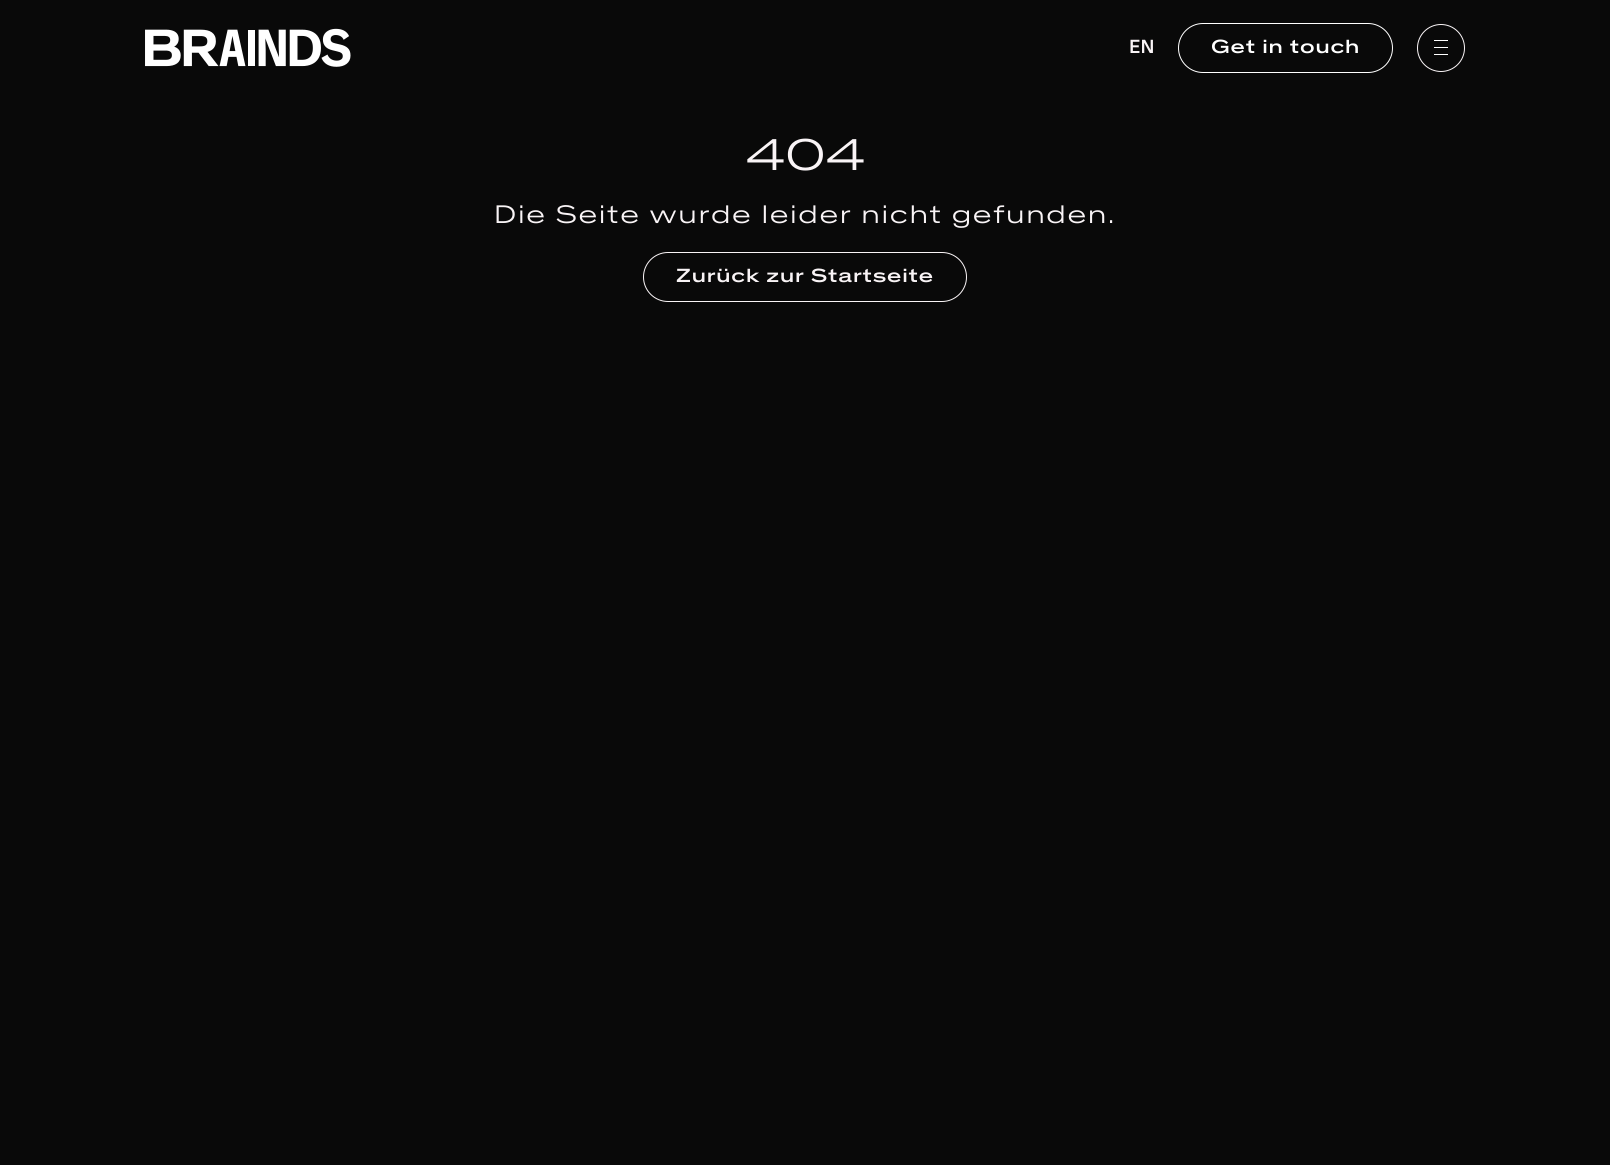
import math
import cairo


def write_spaced(ctx, x, y, s, letter, word):
	ctx.move_to(x, y)
	for ch in s:
		ctx.show_text(ch)
		ctx.rel_move_to(letter + word * (ch == ' '), 0)

def round_path(ctx, x, y, w, h, r):
	ctx.new_sub_path()
	for i, (u, v) in enumerate([(x + w - r, y + h - r), (x + r, y + h - r), (x + r, y + r), (x + w - r, y + r)]):
		ctx.arc(u, v, r, i * math.pi / 2, (i + 1) * math.pi / 2)
	ctx.close_path()

def paste(ctx, path, x, y, w, h):
	ctx.save()
	ctx.set_source_surface(cairo.ImageSurface.create_from_png(path), x, y)
	ctx.rectangle(x, y, w, h)
	ctx.fill()
	ctx.restore()

def draw(ctx):
	ctx.set_source_rgb(0.039, 0.039, 0.039)
	ctx.paint()
	paste(ctx, 'media/1.png', 145, 28, 206, 39)
	ctx.select_font_face('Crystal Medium')
	ctx.set_font_size(18)
	ctx.set_source_rgb(0.976, 0.957, 0.961)
	ctx.move_to(1129, 53)
	ctx.show_text('EN')
	round_path(ctx, 1178.5, 23.5, 214, 49, 24.5)
	ctx.set_source_rgb(1, 1, 1)
	ctx.set_line_width(1)
	ctx.stroke()
	ctx.select_font_face('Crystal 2 Medium')
	write_spaced(ctx, 1211, 53, 'Get in touch', 0.8, 0)
	ctx.new_path()
	ctx.arc(1441, 48, 23.5, 0, 2 * math.pi)
	ctx.set_source_rgb(0.976, 0.957, 0.961)
	ctx.stroke()
	ctx.set_source_rgb(1, 1, 1)
	ctx.rectangle(1434, 47, 14, 1)
	ctx.rectangle(1434, 40, 14, 1)
	ctx.rectangle(1434, 54, 14, 1)
	ctx.fill()
	ctx.select_font_face('Crystal Light')
	ctx.set_font_size(42)
	ctx.set_source_rgb(0.976, 0.957, 0.961)
	ctx.move_to(746, 170)
	ctx.show_text('404')
	ctx.set_font_size(24)
	write_spaced(ctx, 494, 223, 'Die Seite wurde leider nicht gefunden.', 1.6, 0)
	round_path(ctx, 643.5, 252.5, 323, 49, 24.5)
	ctx.stroke()
	ctx.select_font_face('Crystal 2 Medium')
	ctx.set_font_size(18)
	write_spaced(ctx, 676, 282, 'Zurück zur Startseite', 0.8, 0)


surface = cairo.ImageSurface(cairo.FORMAT_RGB24, 1610, 1165)
ctx = cairo.Context(surface)
options = cairo.FontOptions()
options.set_hint_metrics(cairo.HINT_METRICS_OFF)
options.set_hint_style(cairo.HINT_STYLE_NONE)
ctx.set_font_options(options)
ctx.set_miter_limit(4)
draw(ctx)
surface.write_to_png('image.png')
